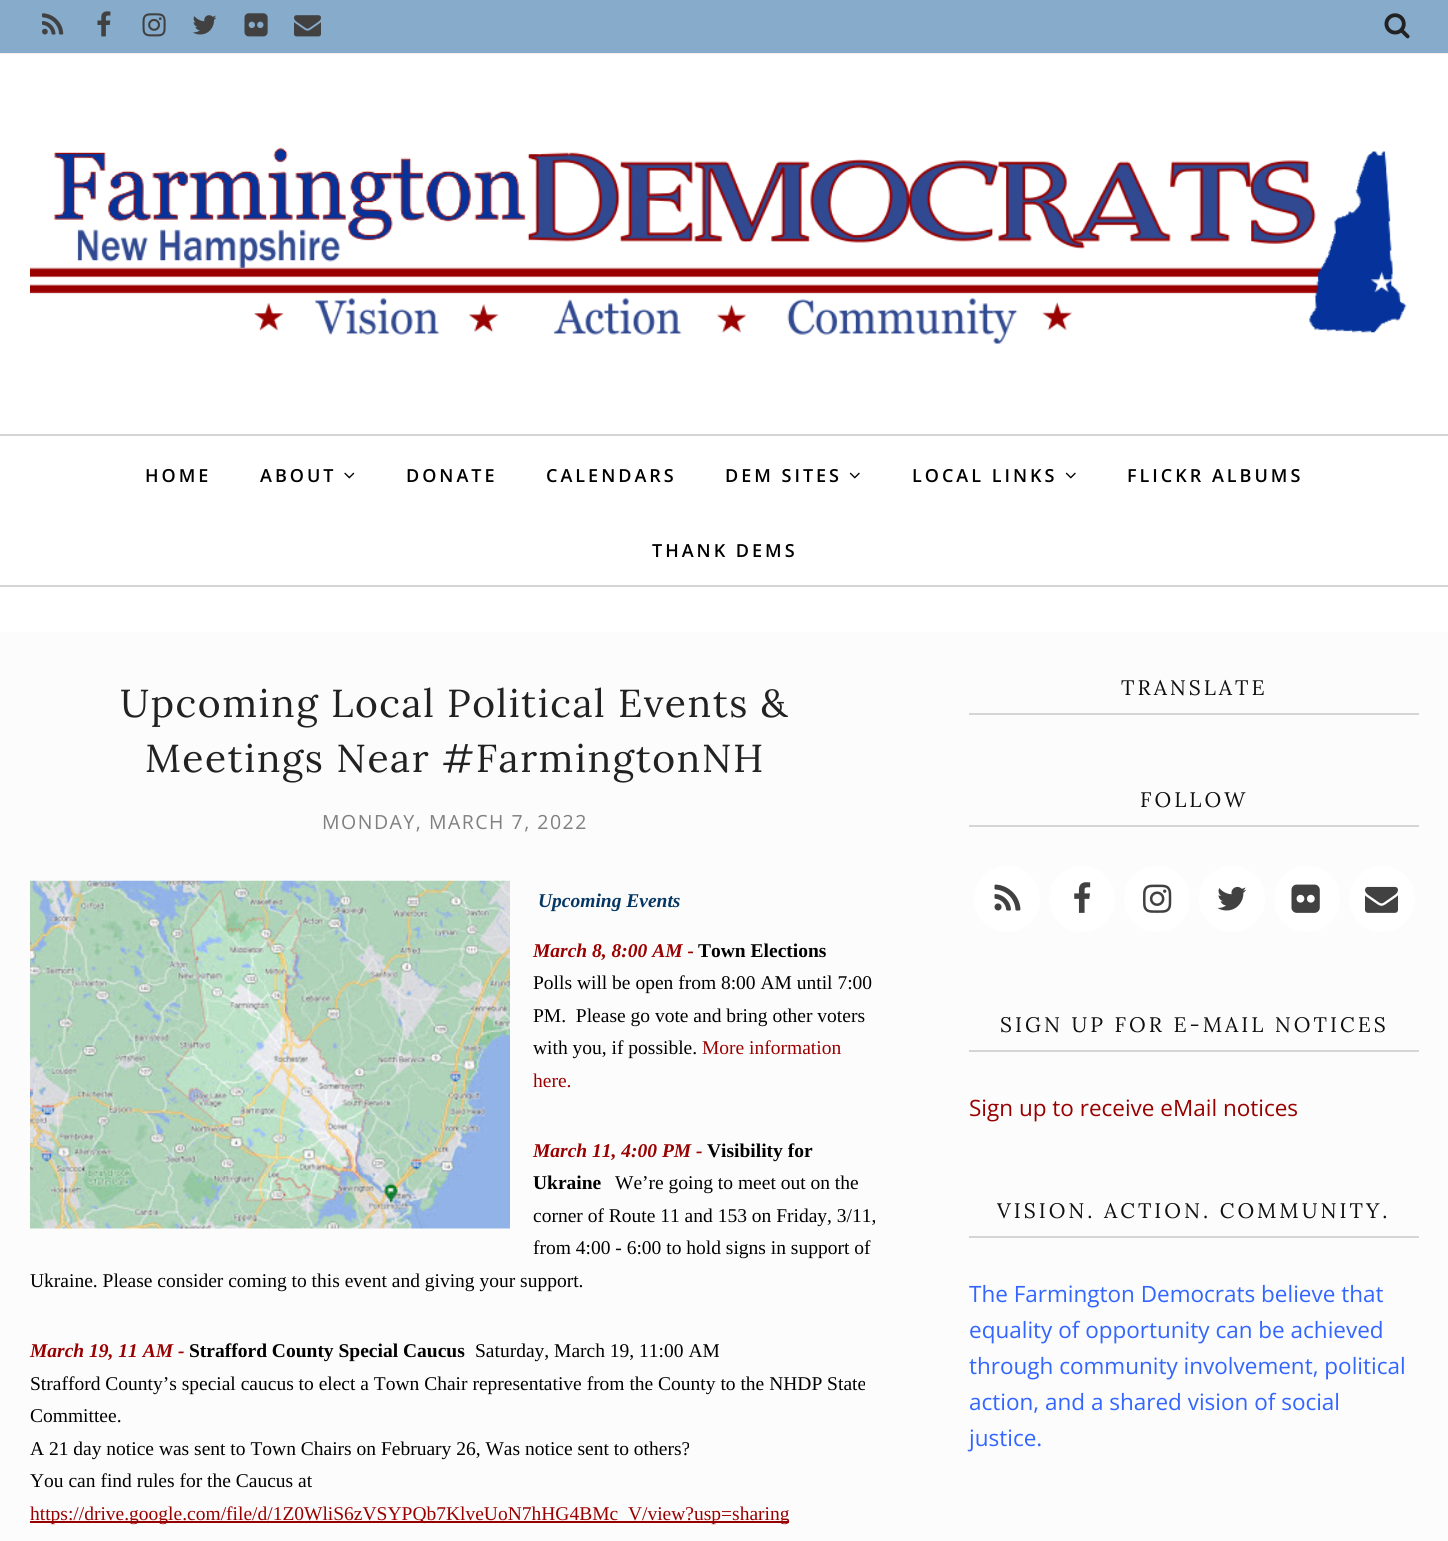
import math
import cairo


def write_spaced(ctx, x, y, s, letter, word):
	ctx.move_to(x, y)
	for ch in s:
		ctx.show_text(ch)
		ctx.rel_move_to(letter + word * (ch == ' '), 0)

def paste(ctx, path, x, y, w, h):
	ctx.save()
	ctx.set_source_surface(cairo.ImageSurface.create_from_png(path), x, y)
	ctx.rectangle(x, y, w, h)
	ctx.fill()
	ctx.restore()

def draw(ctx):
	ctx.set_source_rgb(1, 1, 1)
	ctx.paint()
	ctx.set_source_rgb(0.529, 0.671, 0.796)
	ctx.rectangle(0, 0, 1448, 53)
	ctx.fill()
	ctx.set_source_rgb(0.988, 0.937, 0.918)
	ctx.rectangle(0, 53, 1448, 1)
	ctx.fill()
	paste(ctx, 'media/1.png', 42, 13, 22, 22)
	paste(ctx, 'media/2.png', 97, 11, 14, 26)
	paste(ctx, 'media/3.png', 142, 13, 24, 24)
	paste(ctx, 'media/4.png', 193, 15, 24, 20)
	paste(ctx, 'media/5.png', 244, 13, 24, 24)
	paste(ctx, 'media/6.png', 294, 15, 27, 22)
	paste(ctx, 'media/7.png', 1384, 13, 26, 26)
	paste(ctx, 'media/8.png', 30, 147, 1377, 197)
	ctx.set_source_rgb(0.835, 0.835, 0.835)
	ctx.rectangle(0, 434, 1448, 2)
	ctx.fill()
	ctx.rectangle(0, 585, 1448, 2)
	ctx.fill()
	ctx.select_font_face('Open Sans SemiBold')
	ctx.set_font_size(18)
	ctx.set_source_rgb(0, 0, 0)
	write_spaced(ctx, 145, 482, 'HOME', 3, 0)
	write_spaced(ctx, 260, 482, 'ABOUT', 3, 0)
	paste(ctx, 'media/9.png', 344, 472, 11, 7)
	for x, y, s in [
		(406, 482, 'DONATE'),
		(546, 482, 'CALENDARS'),
		(725, 482, 'DEM SITES'),
	]:
		write_spaced(ctx, x, y, s, 3, 0)
	paste(ctx, 'media/10.png', 849, 472, 11, 7)
	write_spaced(ctx, 912, 482, 'LOCAL LINKS', 3, 0)
	paste(ctx, 'media/10.png', 1065, 472, 11, 7)
	write_spaced(ctx, 1127, 482, 'FLICKR ALBUMS', 3, 0)
	write_spaced(ctx, 652, 557, 'THANK DEMS', 3, 0)
	ctx.set_source_rgb(0.988, 0.988, 0.988)
	ctx.rectangle(0, 632, 1448, 909)
	ctx.fill()
	ctx.select_font_face('Lora')
	ctx.set_font_size(39)
	ctx.set_source_rgb(0.133, 0.133, 0.133)
	write_spaced(ctx, 120, 717, 'Upcoming Local Political Events &', 1.5, 0)
	write_spaced(ctx, 145, 772, 'Meetings Near #FarmingtonNH', 1.5, 0)
	ctx.select_font_face('Open Sans')
	ctx.set_font_size(19.5)
	ctx.set_source_rgb(0.502, 0.502, 0.502)
	write_spaced(ctx, 322, 829, 'MONDAY, MARCH 7, 2022', 1.5, 0)
	paste(ctx, 'media/11.png', 30, 880, 480, 349)
	ctx.select_font_face('Liberation Serif', cairo.FONT_SLANT_ITALIC, cairo.FONT_WEIGHT_BOLD)
	ctx.set_source_rgb(0.027, 0.216, 0.388)
	ctx.move_to(538, 907)
	ctx.show_text('Upcoming Events')
	ctx.set_source_rgb(0.6, 0, 0)
	ctx.move_to(533, 957)
	ctx.show_text('March 8, 8:00 AM -')
	ctx.select_font_face('Liberation Serif', cairo.FONT_SLANT_NORMAL, cairo.FONT_WEIGHT_BOLD)
	ctx.set_source_rgb(0, 0, 0)
	ctx.move_to(698, 957)
	ctx.show_text('Town Elections')
	ctx.select_font_face('Liberation Serif')
	for x, y, s in [
		(533, 989, 'Polls will be open from 8:00 AM until 7:00'),
		(533, 1022, 'PM.  Please go vote and bring other voters'),
		(533, 1054, 'with you, if possible.'),
	]:
		ctx.move_to(x, y)
		ctx.show_text(s)
	ctx.set_source_rgb(0.6, 0, 0)
	ctx.move_to(702, 1054)
	ctx.show_text('More information')
	ctx.move_to(533, 1087)
	ctx.show_text('here.')
	ctx.select_font_face('Liberation Serif', cairo.FONT_SLANT_ITALIC, cairo.FONT_WEIGHT_BOLD)
	ctx.move_to(533, 1157)
	ctx.show_text('March 11, 4:00 PM -')
	ctx.select_font_face('Liberation Serif', cairo.FONT_SLANT_NORMAL, cairo.FONT_WEIGHT_BOLD)
	ctx.set_source_rgb(0, 0, 0)
	ctx.move_to(707, 1157)
	ctx.show_text('Visibility for')
	ctx.move_to(533, 1189)
	ctx.show_text('Ukraine')
	ctx.select_font_face('Liberation Serif')
	for x, y, s in [
		(615, 1189, 'We’re going to meet out on the'),
		(533, 1222, 'corner of Route 11 and 153 on Friday, 3/11,'),
		(533, 1254, 'from 4:00 - 6:00 to hold signs in support of'),
		(30, 1287, 'Ukraine. Please consider coming to this event and giving your support.'),
	]:
		ctx.move_to(x, y)
		ctx.show_text(s)
	ctx.select_font_face('Liberation Serif', cairo.FONT_SLANT_ITALIC, cairo.FONT_WEIGHT_BOLD)
	ctx.set_source_rgb(0.6, 0, 0)
	ctx.move_to(30, 1357)
	ctx.show_text('March 19, 11 AM -')
	ctx.select_font_face('Liberation Serif', cairo.FONT_SLANT_NORMAL, cairo.FONT_WEIGHT_BOLD)
	ctx.set_source_rgb(0, 0, 0)
	ctx.move_to(189, 1357)
	ctx.show_text('Strafford County Special Caucus')
	ctx.select_font_face('Liberation Serif')
	for x, y, s in [
		(475, 1357, 'Saturday, March 19, 11:00 AM'),
		(30, 1390, 'Strafford County’s special caucus to elect a Town Chair representative from the County to the NHDP State'),
		(30, 1422, 'Committee.'),
		(30, 1455, 'A 21 day notice was sent to Town Chairs on February 26, Was notice sent to others?'),
		(30, 1487, 'You can find rules for the Caucus at'),
	]:
		ctx.move_to(x, y)
		ctx.show_text(s)
	ctx.set_source_rgb(0.6, 0, 0)
	ctx.rectangle(30, 1521, 759, 2)
	ctx.fill()
	ctx.move_to(30, 1520)
	ctx.show_text('https://drive.google.com/file/d/1Z0WliS6zVSYPQb7KlveUoN7hHG4BMc_V/view?usp=sharing')
	ctx.set_source_rgb(0.835, 0.835, 0.835)
	ctx.rectangle(969, 713, 450, 2)
	ctx.fill()
	ctx.select_font_face('Lora')
	ctx.set_font_size(21)
	ctx.set_source_rgb(0.063, 0.063, 0.063)
	write_spaced(ctx, 1121, 695, 'TRANSLATE', 3, 0)
	ctx.set_source_rgb(0.835, 0.835, 0.835)
	ctx.rectangle(969, 825, 450, 2)
	ctx.fill()
	ctx.set_source_rgb(0.063, 0.063, 0.063)
	write_spaced(ctx, 1140, 807, 'FOLLOW', 3, 0)
	ctx.set_source_rgb(1, 1, 1)
	ctx.new_path()
	ctx.arc(1007, 899, 33, 0, 2 * math.pi)
	ctx.fill()
	paste(ctx, 'media/12.png', 994, 884, 27, 27)
	ctx.arc(1082, 899, 33, 0, 2 * math.pi)
	ctx.fill()
	paste(ctx, 'media/13.png', 1074, 882, 17, 31)
	ctx.arc(1157, 899, 33, 0, 2 * math.pi)
	ctx.fill()
	paste(ctx, 'media/14.png', 1143, 884, 29, 29)
	ctx.arc(1232, 899, 33, 0, 2 * math.pi)
	ctx.fill()
	paste(ctx, 'media/15.png', 1217, 886, 30, 25)
	ctx.arc(1307, 899, 33, 0, 2 * math.pi)
	ctx.fill()
	paste(ctx, 'media/16.png', 1291, 884, 29, 29)
	ctx.arc(1382, 899, 33, 0, 2 * math.pi)
	ctx.fill()
	paste(ctx, 'media/17.png', 1365, 886, 33, 27)
	ctx.set_source_rgb(0.835, 0.835, 0.835)
	ctx.rectangle(969, 1050, 450, 2)
	ctx.fill()
	ctx.set_source_rgb(0.063, 0.063, 0.063)
	write_spaced(ctx, 1000, 1032, 'SIGN UP FOR E-MAIL NOTICES', 3, 0)
	ctx.select_font_face('Open Sans')
	ctx.set_font_size(22.5)
	ctx.set_source_rgb(0.6, 0, 0)
	ctx.move_to(969, 1116)
	ctx.show_text('Sign up to receive eMail notices')
	ctx.set_source_rgb(0.835, 0.835, 0.835)
	ctx.rectangle(969, 1236, 450, 2)
	ctx.fill()
	ctx.select_font_face('Lora')
	ctx.set_font_size(21)
	ctx.set_source_rgb(0.063, 0.063, 0.063)
	write_spaced(ctx, 997, 1218, 'VISION. ACTION. COMMUNITY.', 3, 0)
	ctx.select_font_face('Open Sans')
	ctx.set_font_size(22.5)
	ctx.set_source_rgb(0.2, 0.4, 1)
	for x, y, s in [
		(969, 1302, 'The Farmington Democrats believe that'),
		(969, 1338, 'equality of opportunity can be achieved'),
		(969, 1374, 'through community involvement, political'),
		(969, 1410, 'action, and a shared vision of social'),
		(969, 1446, 'justice.'),
	]:
		ctx.move_to(x, y)
		ctx.show_text(s)


surface = cairo.ImageSurface(cairo.FORMAT_RGB24, 1448, 1541)
ctx = cairo.Context(surface)
options = cairo.FontOptions()
options.set_hint_metrics(cairo.HINT_METRICS_OFF)
options.set_hint_style(cairo.HINT_STYLE_NONE)
ctx.set_font_options(options)
ctx.set_miter_limit(4)
draw(ctx)
surface.write_to_png('image.png')
